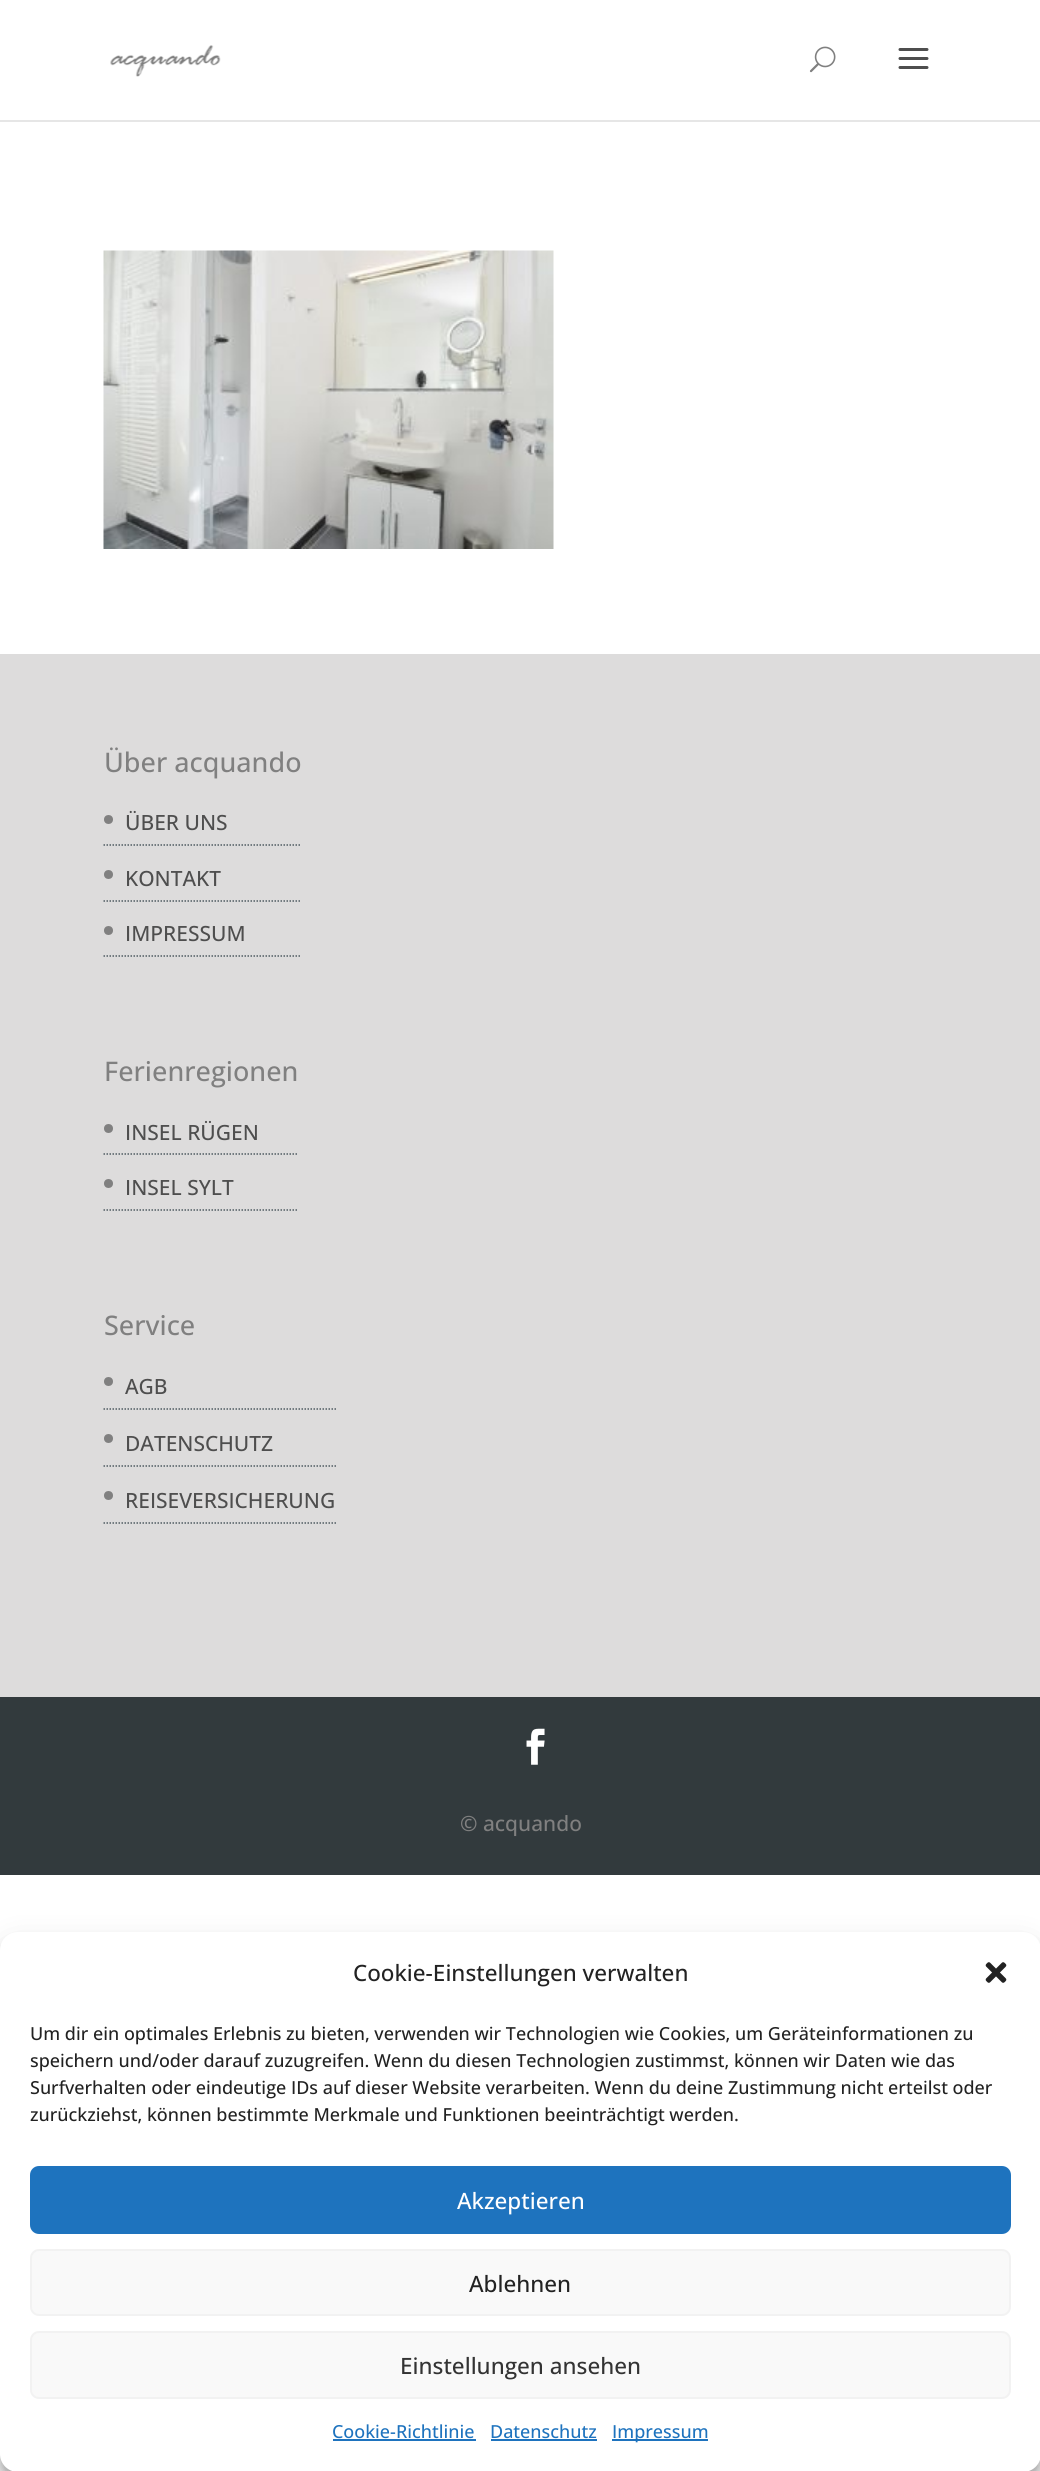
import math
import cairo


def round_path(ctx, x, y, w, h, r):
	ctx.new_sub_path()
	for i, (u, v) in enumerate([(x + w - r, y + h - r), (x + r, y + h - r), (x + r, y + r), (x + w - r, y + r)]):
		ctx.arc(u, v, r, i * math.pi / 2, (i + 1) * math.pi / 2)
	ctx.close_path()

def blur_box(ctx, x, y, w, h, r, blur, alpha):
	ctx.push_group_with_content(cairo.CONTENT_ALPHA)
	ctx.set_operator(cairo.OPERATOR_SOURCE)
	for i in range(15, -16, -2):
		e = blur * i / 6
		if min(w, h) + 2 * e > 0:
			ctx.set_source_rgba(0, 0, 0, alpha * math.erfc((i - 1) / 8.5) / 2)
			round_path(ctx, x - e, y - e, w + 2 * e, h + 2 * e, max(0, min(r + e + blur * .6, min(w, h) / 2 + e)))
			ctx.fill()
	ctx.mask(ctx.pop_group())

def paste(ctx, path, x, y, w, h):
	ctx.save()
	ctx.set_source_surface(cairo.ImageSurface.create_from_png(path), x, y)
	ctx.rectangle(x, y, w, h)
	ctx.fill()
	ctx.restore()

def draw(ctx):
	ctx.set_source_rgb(1, 1, 1)
	ctx.paint()
	ctx.set_source_rgb(0.902, 0.902, 0.902)
	ctx.rectangle(0, 120, 1040, 2)
	ctx.fill()
	paste(ctx, 'media/1.png', 110, 45, 111, 32)
	paste(ctx, 'media/2.png', 809, 46, 27, 27)
	paste(ctx, 'media/3.png', 898, 48, 31, 21)
	paste(ctx, 'media/4.png', 103, 250, 451, 299)
	ctx.set_source_rgb(0.867, 0.863, 0.863)
	ctx.rectangle(0, 654, 1040, 1043)
	ctx.fill()
	ctx.select_font_face('Open Sans Medium')
	ctx.set_font_size(27)
	ctx.set_source_rgb(0.502, 0.502, 0.502)
	ctx.move_to(104, 772)
	ctx.show_text('Über acquando')
	ctx.new_path()
	ctx.move_to(103.5, 845)
	ctx.line_to(301.5, 845)
	ctx.set_source_rgb(0.31, 0.361, 0.384)
	ctx.set_line_width(1.5)
	ctx.set_dash([1.5, 1.5])
	ctx.stroke()
	ctx.set_source_rgb(0.502, 0.502, 0.502)
	ctx.arc(108.5, 819.5, 4.5, 0, 2 * math.pi)
	ctx.fill()
	ctx.set_font_size(21)
	ctx.set_source_rgb(0.306, 0.306, 0.306)
	ctx.move_to(125, 830)
	ctx.show_text('ÜBER UNS')
	ctx.new_path()
	ctx.move_to(103.5, 901)
	ctx.line_to(301.5, 901)
	ctx.set_source_rgb(0.31, 0.361, 0.384)
	ctx.stroke()
	ctx.set_source_rgb(0.502, 0.502, 0.502)
	ctx.arc(108.5, 874.5, 4.5, 0, 2 * math.pi)
	ctx.fill()
	ctx.set_source_rgb(0.306, 0.306, 0.306)
	ctx.move_to(125, 886)
	ctx.show_text('KONTAKT')
	ctx.new_path()
	ctx.move_to(103.5, 956)
	ctx.line_to(301.5, 956)
	ctx.set_source_rgb(0.31, 0.361, 0.384)
	ctx.stroke()
	ctx.set_source_rgb(0.502, 0.502, 0.502)
	ctx.arc(108.5, 930.5, 4.5, 0, 2 * math.pi)
	ctx.fill()
	ctx.set_source_rgb(0.306, 0.306, 0.306)
	ctx.move_to(125, 941)
	ctx.show_text('IMPRESSUM')
	ctx.set_font_size(27)
	ctx.set_source_rgb(0.502, 0.502, 0.502)
	ctx.move_to(104, 1081)
	ctx.show_text('Ferienregionen')
	ctx.new_path()
	ctx.move_to(103.5, 1154)
	ctx.line_to(298.5, 1154)
	ctx.set_source_rgb(0.31, 0.361, 0.384)
	ctx.stroke()
	ctx.set_source_rgb(0.502, 0.502, 0.502)
	ctx.arc(108.5, 1128.5, 4.5, 0, 2 * math.pi)
	ctx.fill()
	ctx.set_font_size(21)
	ctx.set_source_rgb(0.306, 0.306, 0.306)
	ctx.move_to(125, 1140)
	ctx.show_text('INSEL RÜGEN')
	ctx.new_path()
	ctx.move_to(103.5, 1210)
	ctx.line_to(298.5, 1210)
	ctx.set_source_rgb(0.31, 0.361, 0.384)
	ctx.stroke()
	ctx.set_source_rgb(0.502, 0.502, 0.502)
	ctx.arc(108.5, 1183.5, 4.5, 0, 2 * math.pi)
	ctx.fill()
	ctx.set_source_rgb(0.306, 0.306, 0.306)
	ctx.move_to(125, 1195)
	ctx.show_text('INSEL SYLT')
	ctx.set_font_size(27)
	ctx.set_source_rgb(0.502, 0.502, 0.502)
	ctx.move_to(104, 1335)
	ctx.show_text('Service')
	ctx.new_path()
	ctx.move_to(103.5, 1409)
	ctx.line_to(336, 1409)
	ctx.set_source_rgb(0.31, 0.361, 0.384)
	ctx.stroke()
	ctx.set_source_rgb(0.502, 0.502, 0.502)
	ctx.arc(108.5, 1381.5, 4.5, 0, 2 * math.pi)
	ctx.fill()
	ctx.set_font_size(21)
	ctx.set_source_rgb(0.306, 0.306, 0.306)
	ctx.move_to(125, 1394)
	ctx.show_text('AGB')
	ctx.new_path()
	ctx.move_to(103.5, 1466)
	ctx.line_to(336, 1466)
	ctx.set_source_rgb(0.31, 0.361, 0.384)
	ctx.stroke()
	ctx.set_source_rgb(0.502, 0.502, 0.502)
	ctx.arc(108.5, 1438.5, 4.5, 0, 2 * math.pi)
	ctx.fill()
	ctx.set_source_rgb(0.306, 0.306, 0.306)
	ctx.move_to(125, 1451)
	ctx.show_text('DATENSCHUTZ')
	ctx.new_path()
	ctx.move_to(103.5, 1523)
	ctx.line_to(336, 1523)
	ctx.set_source_rgb(0.31, 0.361, 0.384)
	ctx.stroke()
	ctx.set_source_rgb(0.502, 0.502, 0.502)
	ctx.arc(108.5, 1495.5, 4.5, 0, 2 * math.pi)
	ctx.fill()
	ctx.set_source_rgb(0.306, 0.306, 0.306)
	ctx.move_to(125, 1508)
	ctx.show_text('REISEVERSICHERUNG')
	ctx.set_source_rgb(0.196, 0.227, 0.239)
	ctx.rectangle(0, 1697, 1040, 178)
	ctx.fill()
	paste(ctx, 'media/5.png', 526, 1728, 19, 37)
	ctx.set_source_rgb(0.502, 0.502, 0.502)
	ctx.move_to(460, 1831)
	ctx.show_text('© acquando')
	ctx.set_source_rgb(0, 0, 0)
	blur_box(ctx, 0, 1941, 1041, 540, 18, 4.5, 0.23)
	blur_box(ctx, 0, 1947, 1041, 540, 18, 15, 0.19)
	ctx.set_source_rgb(1, 1, 1)
	round_path(ctx, 0, 1932, 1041, 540, 18)
	ctx.fill()
	ctx.set_font_size(22.5)
	ctx.set_source_rgb(0.133, 0.133, 0.133)
	ctx.move_to(353, 1981)
	ctx.show_text('Cookie-Einstellungen verwalten')
	paste(ctx, 'media/6.png', 985, 1962, 22, 21)
	ctx.set_font_size(18)
	for x, y, s in [
		(30, 2040, 'Um dir ein optimales Erlebnis zu bieten, verwenden wir Technologien wie Cookies, um Geräteinformationen zu'),
		(30, 2067, 'speichern und/oder darauf zuzugreifen. Wenn du diesen Technologien zustimmst, können wir Daten wie das'),
		(30, 2094, 'Surfverhalten oder eindeutige IDs auf dieser Website verarbeiten. Wenn du deine Zustimmung nicht erteilst oder'),
		(30, 2121, 'zurückziehst, können bestimmte Merkmale und Funktionen beeinträchtigt werden.'),
	]:
		ctx.move_to(x, y)
		ctx.show_text(s)
	ctx.set_source_rgb(0.118, 0.451, 0.745)
	round_path(ctx, 31, 2167, 979, 66, 8)
	ctx.fill_preserve()
	ctx.set_line_width(2)
	ctx.set_dash([])
	ctx.stroke()
	ctx.set_font_size(22.5)
	ctx.set_source_rgb(1, 1, 1)
	ctx.move_to(457, 2209)
	ctx.show_text('Akzeptieren')
	ctx.set_source_rgb(0.976, 0.976, 0.976)
	round_path(ctx, 31, 2250, 979, 65, 8)
	ctx.fill_preserve()
	ctx.set_source_rgb(0.949, 0.949, 0.949)
	ctx.stroke()
	ctx.set_source_rgb(0.133, 0.133, 0.133)
	ctx.move_to(469, 2292)
	ctx.show_text('Ablehnen')
	ctx.set_source_rgb(0.976, 0.976, 0.976)
	round_path(ctx, 31, 2332, 979, 66, 8)
	ctx.fill_preserve()
	ctx.set_source_rgb(0.949, 0.949, 0.949)
	ctx.stroke()
	ctx.set_source_rgb(0.2, 0.2, 0.2)
	ctx.move_to(400, 2374)
	ctx.show_text('Einstellungen ansehen')
	ctx.set_font_size(18)
	ctx.set_source_rgb(0.118, 0.451, 0.745)
	ctx.move_to(332, 2438)
	ctx.show_text('Cookie-Richtlinie')
	ctx.rectangle(333, 2439, 143, 2)
	ctx.fill()
	ctx.move_to(490, 2438)
	ctx.show_text('Datenschutz')
	ctx.rectangle(491, 2439, 106, 2)
	ctx.fill()
	ctx.rectangle(612, 2439, 96, 2)
	ctx.fill()
	ctx.move_to(612, 2438)
	ctx.show_text('Impressum')


surface = cairo.ImageSurface(cairo.FORMAT_RGB24, 1040, 2471)
ctx = cairo.Context(surface)
options = cairo.FontOptions()
options.set_hint_metrics(cairo.HINT_METRICS_OFF)
options.set_hint_style(cairo.HINT_STYLE_NONE)
ctx.set_font_options(options)
ctx.set_miter_limit(4)
draw(ctx)
surface.write_to_png('image.png')
